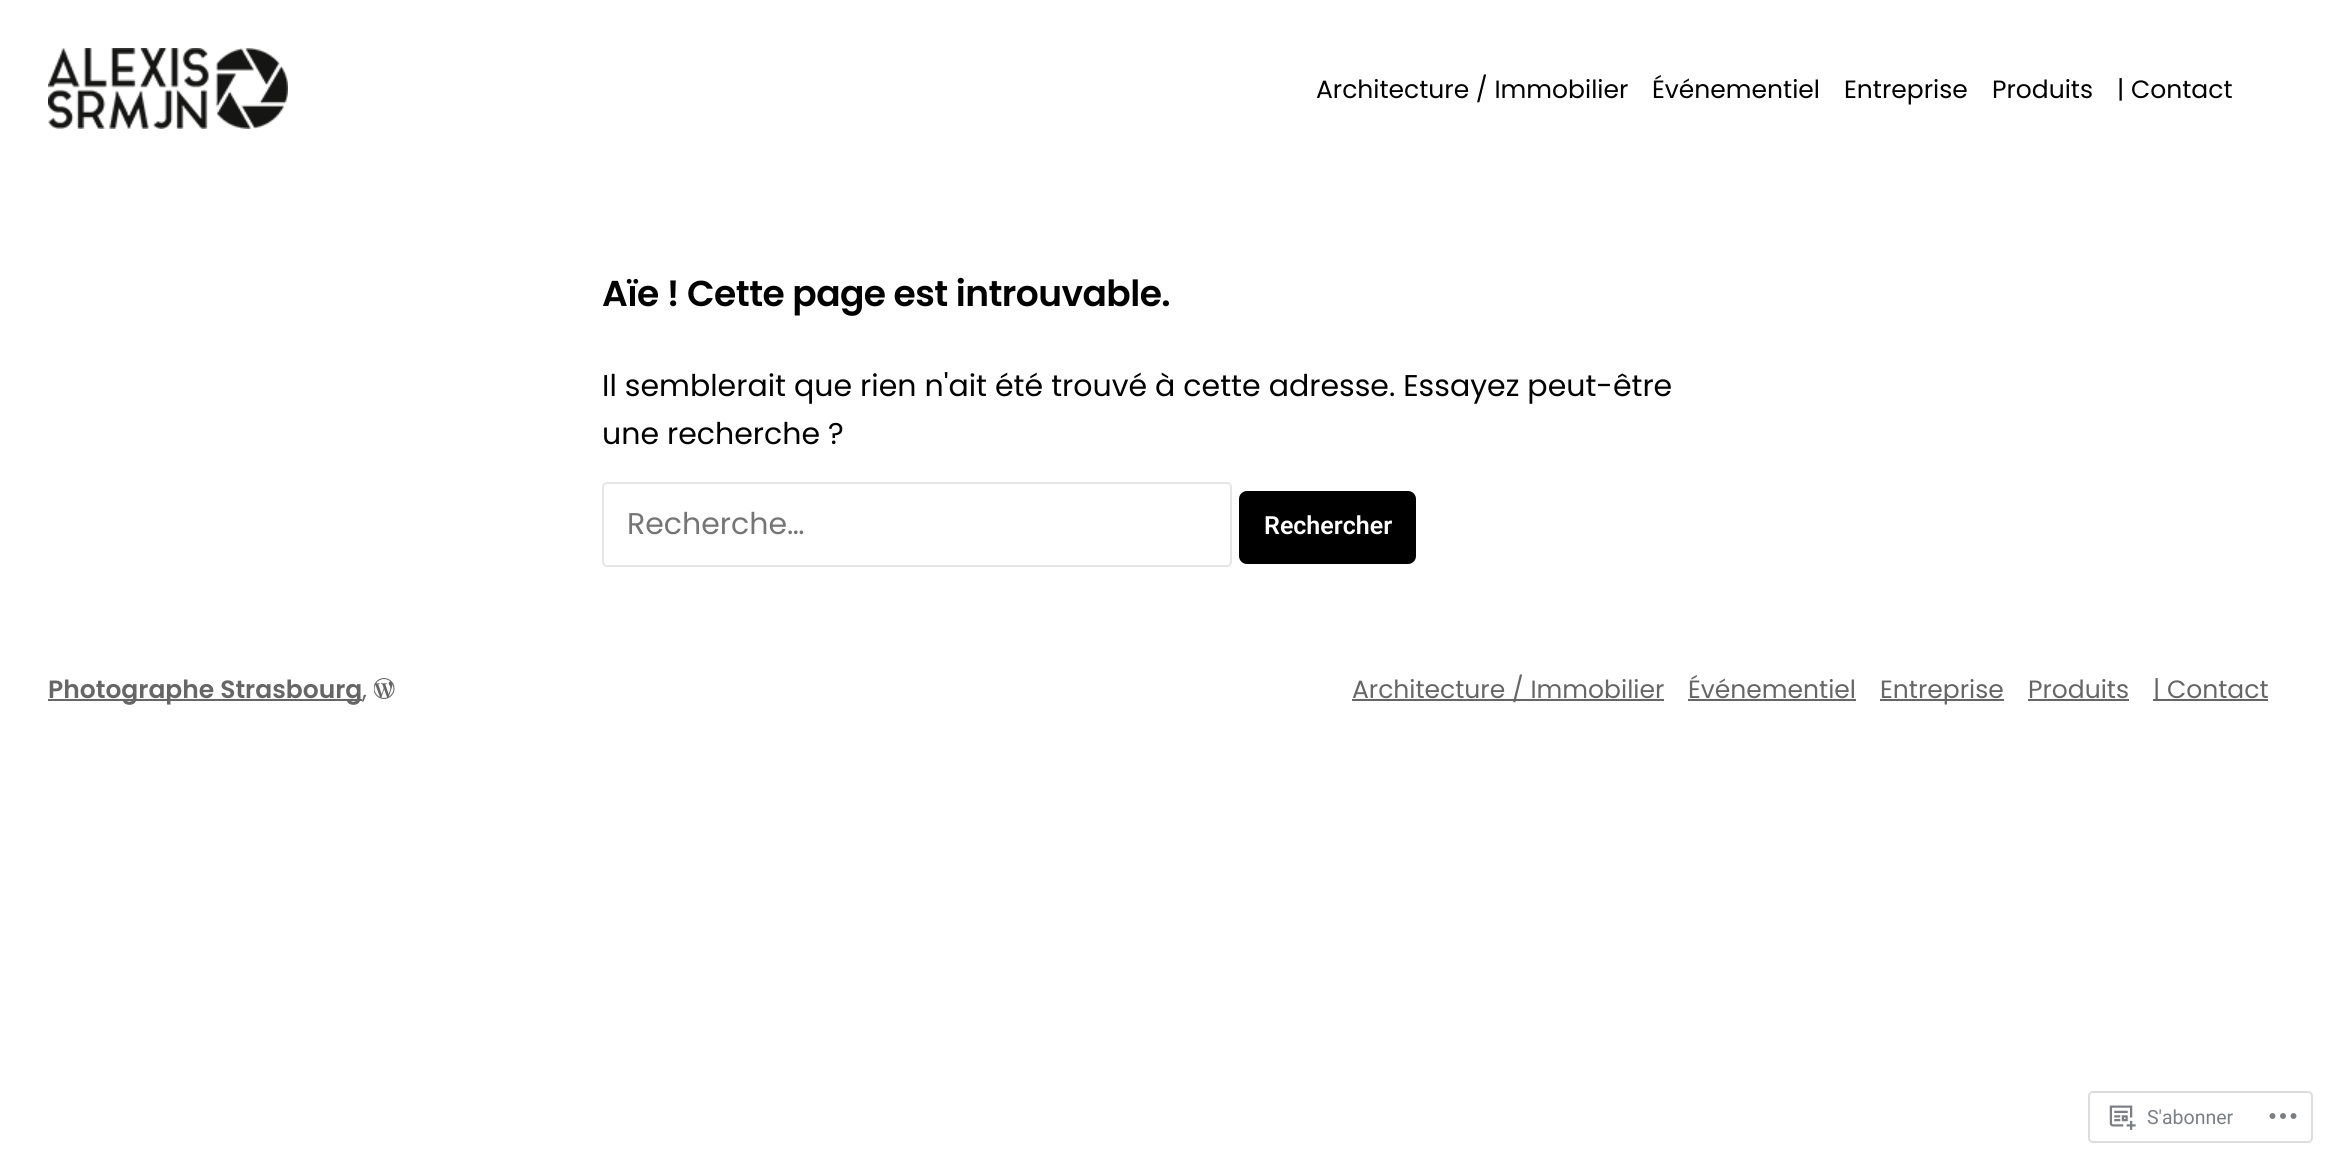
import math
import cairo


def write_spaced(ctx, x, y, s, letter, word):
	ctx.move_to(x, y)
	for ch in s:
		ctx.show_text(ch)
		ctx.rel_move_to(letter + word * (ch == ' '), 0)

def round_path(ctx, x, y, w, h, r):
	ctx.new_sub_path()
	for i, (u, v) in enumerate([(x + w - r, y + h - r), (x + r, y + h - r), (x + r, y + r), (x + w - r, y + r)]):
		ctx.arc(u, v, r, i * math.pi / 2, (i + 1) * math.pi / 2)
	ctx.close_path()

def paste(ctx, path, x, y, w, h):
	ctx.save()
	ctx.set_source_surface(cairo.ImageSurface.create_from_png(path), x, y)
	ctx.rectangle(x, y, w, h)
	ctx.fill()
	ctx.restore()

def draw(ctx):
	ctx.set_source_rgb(1, 1, 1)
	ctx.paint()
	paste(ctx, 'media/1.png', 48, 48, 240, 81)
	ctx.select_font_face('Poppins')
	ctx.set_font_size(25)
	ctx.set_source_rgb(0.004, 0.004, 0.004)
	for x, y, s in [
		(1316, 98, 'Architecture / Immobilier'),
		(1652, 98, 'Événementiel'),
		(1844, 98, 'Entreprise'),
		(1992, 98, 'Produits'),
		(2117, 98, '| Contact'),
	]:
		ctx.move_to(x, y)
		ctx.show_text(s)
	ctx.select_font_face('Poppins SemiBold')
	ctx.set_font_size(36)
	write_spaced(ctx, 602, 306, 'Aïe ! Cette page est introuvable.', -0.55, 0)
	ctx.select_font_face('Poppins')
	ctx.set_font_size(30)
	ctx.move_to(602, 396)
	ctx.show_text('Il semblerait que rien n\'ait été trouvé à cette adresse. Essayez peut-être')
	ctx.move_to(602, 444)
	ctx.show_text('une recherche ?')
	round_path(ctx, 603, 483, 628, 83, 4)
	ctx.set_source_rgb(0.902, 0.902, 0.902)
	ctx.stroke()
	ctx.set_source_rgb(0.459, 0.459, 0.459)
	ctx.move_to(627, 534)
	ctx.show_text('Recherche…')
	ctx.set_source_rgb(0, 0, 0)
	round_path(ctx, 1239, 491, 177, 73, 8)
	ctx.fill()
	ctx.select_font_face('Roboto SemiBold')
	ctx.set_font_size(25)
	ctx.set_source_rgb(1, 1, 1)
	ctx.move_to(1264, 534)
	ctx.show_text('Rechercher')
	ctx.set_source_rgb(0.4, 0.4, 0.4)
	ctx.rectangle(48, 699, 314, 2)
	ctx.fill()
	ctx.select_font_face('Poppins SemiBold')
	ctx.move_to(48, 698)
	ctx.show_text('Photographe Strasbourg')
	ctx.select_font_face('Poppins')
	ctx.move_to(362, 698)
	ctx.show_text(',')
	paste(ctx, 'media/2.png', 374, 678, 21, 21)
	ctx.rectangle(1352, 699, 312, 2)
	ctx.fill()
	ctx.move_to(1352, 698)
	ctx.show_text('Architecture / Immobilier')
	ctx.move_to(1688, 698)
	ctx.show_text('Événementiel')
	ctx.rectangle(1688, 699, 168, 2)
	ctx.fill()
	ctx.rectangle(1880, 699, 124, 2)
	ctx.fill()
	ctx.move_to(1880, 698)
	ctx.show_text('Entreprise')
	ctx.move_to(2028, 698)
	ctx.show_text('Produits')
	ctx.rectangle(2028, 699, 101, 2)
	ctx.fill()
	ctx.rectangle(2153, 699, 115, 2)
	ctx.fill()
	ctx.move_to(2153, 698)
	ctx.show_text('| Contact')
	round_path(ctx, 2089, 1092, 223, 50, 4)
	ctx.set_source_rgb(0.867, 0.867, 0.875)
	ctx.stroke()
	paste(ctx, 'media/3.png', 2109, 1105, 27, 25)
	ctx.select_font_face('Roboto')
	ctx.set_font_size(19.5)
	ctx.set_source_rgb(0.482, 0.498, 0.522)
	ctx.move_to(2147, 1124)
	ctx.show_text('S\'abonner')
	paste(ctx, 'media/4.png', 2269, 1113, 28, 6)


surface = cairo.ImageSurface(cairo.FORMAT_RGB24, 2327, 1158)
ctx = cairo.Context(surface)
options = cairo.FontOptions()
options.set_hint_metrics(cairo.HINT_METRICS_OFF)
options.set_hint_style(cairo.HINT_STYLE_NONE)
ctx.set_font_options(options)
ctx.set_miter_limit(4)
draw(ctx)
surface.write_to_png('image.png')
